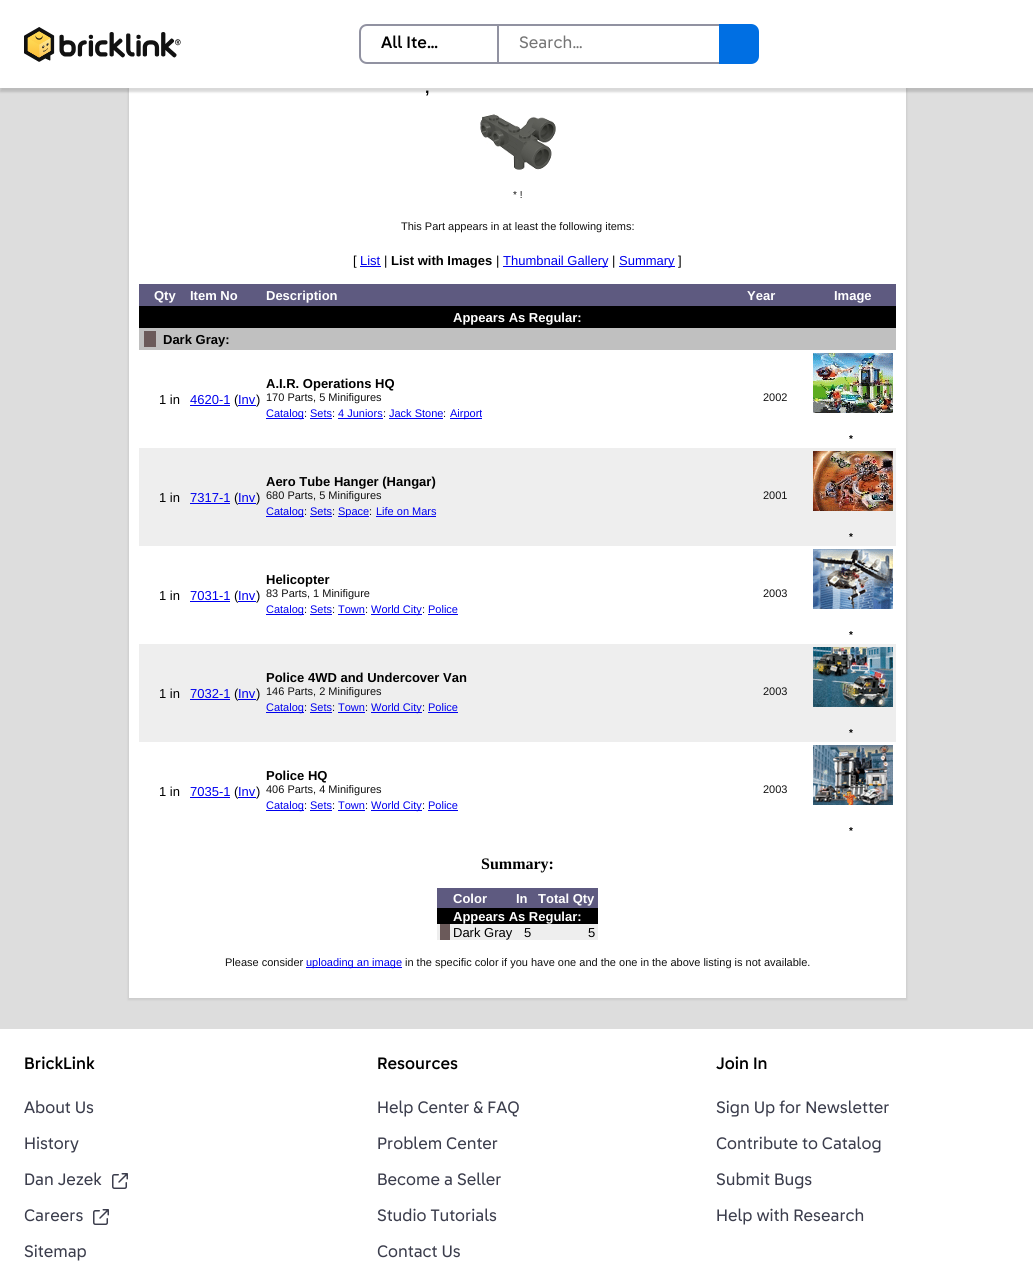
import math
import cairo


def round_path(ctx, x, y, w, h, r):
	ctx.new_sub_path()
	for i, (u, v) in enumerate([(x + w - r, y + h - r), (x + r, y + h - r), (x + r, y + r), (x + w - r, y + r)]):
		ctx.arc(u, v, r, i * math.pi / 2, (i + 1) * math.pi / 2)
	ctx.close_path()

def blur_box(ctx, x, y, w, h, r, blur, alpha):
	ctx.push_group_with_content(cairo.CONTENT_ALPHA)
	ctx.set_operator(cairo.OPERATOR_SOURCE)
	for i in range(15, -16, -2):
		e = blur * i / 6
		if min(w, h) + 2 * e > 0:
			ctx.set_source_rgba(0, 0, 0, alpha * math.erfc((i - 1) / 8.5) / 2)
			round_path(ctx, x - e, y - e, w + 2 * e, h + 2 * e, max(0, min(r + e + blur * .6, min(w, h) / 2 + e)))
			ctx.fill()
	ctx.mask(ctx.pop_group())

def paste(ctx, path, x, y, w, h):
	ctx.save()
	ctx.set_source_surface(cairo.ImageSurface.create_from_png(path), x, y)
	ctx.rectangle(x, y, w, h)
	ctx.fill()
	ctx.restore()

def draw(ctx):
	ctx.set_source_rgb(0.867, 0.867, 0.867)
	ctx.paint()
	ctx.set_source_rgb(0.8, 0.8, 0.8)
	blur_box(ctx, 128, -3, 779, 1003, 0, 1, 1)
	ctx.set_source_rgb(1, 1, 1)
	ctx.rectangle(129, 88, 777, 910)
	ctx.fill()
	ctx.set_source_rgb(0, 0, 0)
	blur_box(ctx, 0, 4, 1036, 88, 0, 1, 0.15)
	ctx.set_source_rgb(1, 1, 1)
	ctx.rectangle(0, 0, 1033, 88)
	ctx.fill()
	paste(ctx, 'media/1.png', 24, 27, 157, 35)
	ctx.set_source_rgb(0.569, 0.573, 0.631)
	ctx.rectangle(497, 24, 222, 2)
	ctx.fill()
	ctx.rectangle(497, 62, 222, 2)
	ctx.fill()
	ctx.set_source_rgb(1, 1, 1)
	ctx.new_path()
	ctx.move_to(367, 25)
	ctx.line_to(498, 25)
	ctx.line_to(498, 63)
	ctx.line_to(367, 63)
	ctx.curve_to(363, 63, 360, 60, 360, 56)
	ctx.line_to(360, 32)
	ctx.curve_to(360, 28, 363, 25, 367, 25)
	ctx.close_path()
	ctx.fill_preserve()
	ctx.set_source_rgb(0.569, 0.573, 0.631)
	ctx.stroke()
	ctx.select_font_face('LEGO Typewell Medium')
	ctx.set_font_size(16)
	ctx.set_source_rgb(0, 0, 0)
	ctx.move_to(381, 48)
	ctx.show_text('All Ite…')
	ctx.select_font_face('LEGO Typewell')
	ctx.set_source_rgb(0.459, 0.459, 0.459)
	ctx.move_to(519, 48)
	ctx.show_text('Search…')
	ctx.set_source_rgb(0, 0.435, 0.89)
	ctx.new_path()
	ctx.move_to(720, 25)
	ctx.line_to(751, 25)
	ctx.curve_to(755, 25, 758, 28, 758, 32)
	ctx.line_to(758, 56)
	ctx.curve_to(758, 60, 755, 63, 751, 63)
	ctx.line_to(720, 63)
	ctx.close_path()
	ctx.fill_preserve()
	ctx.stroke()
	ctx.select_font_face('Liberation Sans', cairo.FONT_SLANT_NORMAL, cairo.FONT_WEIGHT_BOLD)
	ctx.set_source_rgb(0, 0, 0)
	ctx.move_to(425, 93)
	ctx.show_text(',')
	paste(ctx, 'media/2.png', 480, 114, 76, 56)
	ctx.select_font_face('Liberation Sans')
	ctx.set_font_size(10)
	ctx.set_source_rgb(0.067, 0.067, 0.067)
	ctx.move_to(513, 198)
	ctx.show_text('* !')
	ctx.set_font_size(11)
	ctx.move_to(401, 230)
	ctx.show_text('This Part appears in at least the following items:')
	ctx.set_font_size(13)
	ctx.set_source_rgb(0, 0, 0)
	ctx.move_to(353, 265)
	ctx.show_text('[')
	ctx.set_source_rgb(0, 0, 0.933)
	ctx.move_to(360, 265)
	ctx.show_text('List')
	ctx.rectangle(360, 266, 21, 1)
	ctx.fill()
	ctx.set_source_rgb(0, 0, 0)
	ctx.move_to(384, 265)
	ctx.show_text('|')
	ctx.select_font_face('Liberation Sans', cairo.FONT_SLANT_NORMAL, cairo.FONT_WEIGHT_BOLD)
	ctx.move_to(391, 265)
	ctx.show_text('List with Images')
	ctx.select_font_face('Liberation Sans')
	ctx.move_to(496, 265)
	ctx.show_text('|')
	ctx.set_source_rgb(0, 0, 0.933)
	ctx.rectangle(503, 266, 105, 1)
	ctx.fill()
	ctx.move_to(503, 265)
	ctx.show_text('Thumbnail Gallery')
	ctx.set_source_rgb(0, 0, 0)
	ctx.move_to(612, 265)
	ctx.show_text('|')
	ctx.set_source_rgb(0, 0, 0.933)
	ctx.rectangle(619, 266, 56, 1)
	ctx.fill()
	ctx.move_to(619, 265)
	ctx.show_text('Summary')
	ctx.set_source_rgb(0, 0, 0)
	ctx.move_to(678, 265)
	ctx.show_text(']')
	ctx.set_source_rgb(0.369, 0.353, 0.502)
	ctx.rectangle(139, 284, 757, 22)
	ctx.fill()
	ctx.select_font_face('Liberation Sans', cairo.FONT_SLANT_NORMAL, cairo.FONT_WEIGHT_BOLD)
	ctx.set_source_rgb(1, 1, 1)
	for x, y, s in [
		(154, 300, 'Qty'),
		(190, 300, 'Item No'),
		(266, 300, 'Description'),
		(747, 300, 'Year'),
		(834, 300, 'Image'),
	]:
		ctx.move_to(x, y)
		ctx.show_text(s)
	ctx.set_source_rgb(0, 0, 0)
	ctx.rectangle(139, 306, 757, 22)
	ctx.fill()
	ctx.set_source_rgb(1, 1, 1)
	ctx.move_to(453, 322)
	ctx.show_text('Appears As Regular:')
	ctx.set_source_rgb(0.753, 0.753, 0.753)
	ctx.rectangle(139, 328, 757, 22)
	ctx.fill()
	ctx.set_source_rgb(0.42, 0.353, 0.353)
	ctx.rectangle(144, 331, 12, 16)
	ctx.fill()
	ctx.set_source_rgb(0, 0, 0)
	ctx.move_to(163, 344)
	ctx.show_text('Dark Gray:')
	ctx.select_font_face('Liberation Sans')
	ctx.move_to(159, 404)
	ctx.show_text('1 in')
	ctx.set_source_rgb(0, 0, 0.933)
	ctx.move_to(190, 404)
	ctx.show_text('4620-1')
	ctx.rectangle(190, 405, 40, 1)
	ctx.fill()
	ctx.set_source_rgb(0, 0, 0)
	ctx.move_to(234, 404)
	ctx.show_text('(')
	ctx.set_source_rgb(0, 0, 0.933)
	ctx.rectangle(238, 405, 18, 1)
	ctx.fill()
	ctx.move_to(238, 404)
	ctx.show_text('Inv')
	ctx.set_source_rgb(0, 0, 0)
	ctx.move_to(256, 404)
	ctx.show_text(')')
	ctx.select_font_face('Liberation Sans', cairo.FONT_SLANT_NORMAL, cairo.FONT_WEIGHT_BOLD)
	ctx.move_to(266, 388)
	ctx.show_text('A.I.R. Operations HQ')
	ctx.select_font_face('Liberation Sans')
	ctx.set_font_size(11)
	ctx.set_source_rgb(0.067, 0.067, 0.067)
	ctx.move_to(266, 401)
	ctx.show_text('170 Parts, 5 Minifigures')
	ctx.set_source_rgb(0, 0, 0.933)
	ctx.rectangle(266, 418, 38, 1)
	ctx.fill()
	ctx.move_to(266, 417)
	ctx.show_text('Catalog')
	ctx.set_source_rgb(0.067, 0.067, 0.067)
	ctx.move_to(304, 417)
	ctx.show_text(':')
	ctx.set_source_rgb(0, 0, 0.933)
	ctx.move_to(310, 417)
	ctx.show_text('Sets')
	ctx.rectangle(310, 418, 22, 1)
	ctx.fill()
	ctx.set_source_rgb(0.067, 0.067, 0.067)
	ctx.move_to(332, 417)
	ctx.show_text(':')
	ctx.set_source_rgb(0, 0, 0.933)
	ctx.move_to(338, 417)
	ctx.show_text('4 Juniors')
	ctx.set_source_rgb(0.067, 0.067, 0.067)
	ctx.move_to(383, 417)
	ctx.show_text(':')
	ctx.set_source_rgb(0, 0, 0.933)
	ctx.rectangle(338, 418, 45, 1)
	ctx.fill()
	ctx.move_to(389, 417)
	ctx.show_text('Jack Stone')
	ctx.rectangle(389, 418, 54, 1)
	ctx.fill()
	ctx.set_source_rgb(0.067, 0.067, 0.067)
	ctx.move_to(443, 417)
	ctx.show_text(':')
	ctx.set_source_rgb(0, 0, 0.933)
	ctx.rectangle(450, 418, 32, 1)
	ctx.fill()
	ctx.move_to(450, 417)
	ctx.show_text('Airport')
	ctx.set_source_rgb(0.067, 0.067, 0.067)
	ctx.move_to(763, 401)
	ctx.show_text('2002')
	paste(ctx, 'media/3.png', 813, 353, 80, 60)
	ctx.select_font_face('Liberation Sans', cairo.FONT_SLANT_NORMAL, cairo.FONT_WEIGHT_BOLD)
	ctx.set_font_size(10)
	ctx.set_source_rgb(0, 0, 0)
	ctx.move_to(849, 442)
	ctx.show_text('*')
	ctx.set_source_rgb(0.933, 0.933, 0.933)
	ctx.rectangle(139, 448, 757, 98)
	ctx.fill()
	ctx.select_font_face('Liberation Sans')
	ctx.set_font_size(13)
	ctx.set_source_rgb(0, 0, 0)
	ctx.move_to(159, 502)
	ctx.show_text('1 in')
	ctx.set_source_rgb(0, 0, 0.933)
	ctx.move_to(190, 502)
	ctx.show_text('7317-1')
	ctx.rectangle(190, 503, 40, 1)
	ctx.fill()
	ctx.set_source_rgb(0, 0, 0)
	ctx.move_to(234, 502)
	ctx.show_text('(')
	ctx.set_source_rgb(0, 0, 0.933)
	ctx.rectangle(238, 503, 18, 1)
	ctx.fill()
	ctx.move_to(238, 502)
	ctx.show_text('Inv')
	ctx.set_source_rgb(0, 0, 0)
	ctx.move_to(256, 502)
	ctx.show_text(')')
	ctx.select_font_face('Liberation Sans', cairo.FONT_SLANT_NORMAL, cairo.FONT_WEIGHT_BOLD)
	ctx.move_to(266, 486)
	ctx.show_text('Aero Tube Hanger (Hangar)')
	ctx.select_font_face('Liberation Sans')
	ctx.set_font_size(11)
	ctx.set_source_rgb(0.067, 0.067, 0.067)
	ctx.move_to(266, 499)
	ctx.show_text('680 Parts, 5 Minifigures')
	ctx.set_source_rgb(0, 0, 0.933)
	ctx.rectangle(266, 516, 38, 1)
	ctx.fill()
	ctx.move_to(266, 515)
	ctx.show_text('Catalog')
	ctx.set_source_rgb(0.067, 0.067, 0.067)
	ctx.move_to(304, 515)
	ctx.show_text(':')
	ctx.set_source_rgb(0, 0, 0.933)
	ctx.move_to(310, 515)
	ctx.show_text('Sets')
	ctx.rectangle(310, 516, 22, 1)
	ctx.fill()
	ctx.set_source_rgb(0.067, 0.067, 0.067)
	ctx.move_to(332, 515)
	ctx.show_text(':')
	ctx.set_source_rgb(0, 0, 0.933)
	ctx.rectangle(338, 516, 31, 1)
	ctx.fill()
	ctx.move_to(338, 515)
	ctx.show_text('Space')
	ctx.set_source_rgb(0.067, 0.067, 0.067)
	ctx.move_to(369, 515)
	ctx.show_text(':')
	ctx.set_source_rgb(0, 0, 0.933)
	ctx.move_to(376, 515)
	ctx.show_text('Life on Mars')
	ctx.rectangle(376, 516, 60, 1)
	ctx.fill()
	ctx.set_source_rgb(0.067, 0.067, 0.067)
	ctx.move_to(763, 499)
	ctx.show_text('2001')
	paste(ctx, 'media/4.png', 813, 451, 80, 60)
	ctx.select_font_face('Liberation Sans', cairo.FONT_SLANT_NORMAL, cairo.FONT_WEIGHT_BOLD)
	ctx.set_font_size(10)
	ctx.set_source_rgb(0, 0, 0)
	ctx.move_to(849, 540)
	ctx.show_text('*')
	ctx.select_font_face('Liberation Sans')
	ctx.set_font_size(13)
	ctx.move_to(159, 600)
	ctx.show_text('1 in')
	ctx.set_source_rgb(0, 0, 0.933)
	ctx.move_to(190, 600)
	ctx.show_text('7031-1')
	ctx.rectangle(190, 601, 40, 1)
	ctx.fill()
	ctx.set_source_rgb(0, 0, 0)
	ctx.move_to(234, 600)
	ctx.show_text('(')
	ctx.set_source_rgb(0, 0, 0.933)
	ctx.rectangle(238, 601, 18, 1)
	ctx.fill()
	ctx.move_to(238, 600)
	ctx.show_text('Inv')
	ctx.set_source_rgb(0, 0, 0)
	ctx.move_to(256, 600)
	ctx.show_text(')')
	ctx.select_font_face('Liberation Sans', cairo.FONT_SLANT_NORMAL, cairo.FONT_WEIGHT_BOLD)
	ctx.move_to(266, 584)
	ctx.show_text('Helicopter')
	ctx.select_font_face('Liberation Sans')
	ctx.set_font_size(11)
	ctx.set_source_rgb(0.067, 0.067, 0.067)
	ctx.move_to(266, 597)
	ctx.show_text('83 Parts, 1 Minifigure')
	ctx.set_source_rgb(0, 0, 0.933)
	ctx.rectangle(266, 614, 38, 1)
	ctx.fill()
	ctx.move_to(266, 613)
	ctx.show_text('Catalog')
	ctx.set_source_rgb(0.067, 0.067, 0.067)
	ctx.move_to(304, 613)
	ctx.show_text(':')
	ctx.set_source_rgb(0, 0, 0.933)
	ctx.move_to(310, 613)
	ctx.show_text('Sets')
	ctx.rectangle(310, 614, 22, 1)
	ctx.fill()
	ctx.set_source_rgb(0.067, 0.067, 0.067)
	ctx.move_to(332, 613)
	ctx.show_text(':')
	ctx.set_source_rgb(0, 0, 0.933)
	ctx.move_to(338, 613)
	ctx.show_text('Town')
	ctx.rectangle(338, 614, 27, 1)
	ctx.fill()
	ctx.set_source_rgb(0.067, 0.067, 0.067)
	ctx.move_to(365, 613)
	ctx.show_text(':')
	ctx.set_source_rgb(0, 0, 0.933)
	ctx.rectangle(371, 614, 51, 1)
	ctx.fill()
	ctx.move_to(371, 613)
	ctx.show_text('World City')
	ctx.set_source_rgb(0.067, 0.067, 0.067)
	ctx.move_to(422, 613)
	ctx.show_text(':')
	ctx.set_source_rgb(0, 0, 0.933)
	ctx.move_to(428, 613)
	ctx.show_text('Police')
	ctx.rectangle(428, 614, 30, 1)
	ctx.fill()
	ctx.set_source_rgb(0.067, 0.067, 0.067)
	ctx.move_to(763, 597)
	ctx.show_text('2003')
	paste(ctx, 'media/5.png', 813, 549, 80, 60)
	ctx.select_font_face('Liberation Sans', cairo.FONT_SLANT_NORMAL, cairo.FONT_WEIGHT_BOLD)
	ctx.set_font_size(10)
	ctx.set_source_rgb(0, 0, 0)
	ctx.move_to(849, 638)
	ctx.show_text('*')
	ctx.set_source_rgb(0.933, 0.933, 0.933)
	ctx.rectangle(139, 644, 757, 98)
	ctx.fill()
	ctx.select_font_face('Liberation Sans')
	ctx.set_font_size(13)
	ctx.set_source_rgb(0, 0, 0)
	ctx.move_to(159, 698)
	ctx.show_text('1 in')
	ctx.set_source_rgb(0, 0, 0.933)
	ctx.move_to(190, 698)
	ctx.show_text('7032-1')
	ctx.rectangle(190, 699, 40, 1)
	ctx.fill()
	ctx.set_source_rgb(0, 0, 0)
	ctx.move_to(234, 698)
	ctx.show_text('(')
	ctx.set_source_rgb(0, 0, 0.933)
	ctx.rectangle(238, 699, 18, 1)
	ctx.fill()
	ctx.move_to(238, 698)
	ctx.show_text('Inv')
	ctx.set_source_rgb(0, 0, 0)
	ctx.move_to(256, 698)
	ctx.show_text(')')
	ctx.select_font_face('Liberation Sans', cairo.FONT_SLANT_NORMAL, cairo.FONT_WEIGHT_BOLD)
	ctx.move_to(266, 682)
	ctx.show_text('Police 4WD and Undercover Van')
	ctx.select_font_face('Liberation Sans')
	ctx.set_font_size(11)
	ctx.set_source_rgb(0.067, 0.067, 0.067)
	ctx.move_to(266, 695)
	ctx.show_text('146 Parts, 2 Minifigures')
	ctx.set_source_rgb(0, 0, 0.933)
	ctx.rectangle(266, 712, 38, 1)
	ctx.fill()
	ctx.move_to(266, 711)
	ctx.show_text('Catalog')
	ctx.set_source_rgb(0.067, 0.067, 0.067)
	ctx.move_to(304, 711)
	ctx.show_text(':')
	ctx.set_source_rgb(0, 0, 0.933)
	ctx.move_to(310, 711)
	ctx.show_text('Sets')
	ctx.rectangle(310, 712, 22, 1)
	ctx.fill()
	ctx.set_source_rgb(0.067, 0.067, 0.067)
	ctx.move_to(332, 711)
	ctx.show_text(':')
	ctx.set_source_rgb(0, 0, 0.933)
	ctx.move_to(338, 711)
	ctx.show_text('Town')
	ctx.rectangle(338, 712, 27, 1)
	ctx.fill()
	ctx.set_source_rgb(0.067, 0.067, 0.067)
	ctx.move_to(365, 711)
	ctx.show_text(':')
	ctx.set_source_rgb(0, 0, 0.933)
	ctx.rectangle(371, 712, 51, 1)
	ctx.fill()
	ctx.move_to(371, 711)
	ctx.show_text('World City')
	ctx.set_source_rgb(0.067, 0.067, 0.067)
	ctx.move_to(422, 711)
	ctx.show_text(':')
	ctx.set_source_rgb(0, 0, 0.933)
	ctx.move_to(428, 711)
	ctx.show_text('Police')
	ctx.rectangle(428, 712, 30, 1)
	ctx.fill()
	ctx.set_source_rgb(0.067, 0.067, 0.067)
	ctx.move_to(763, 695)
	ctx.show_text('2003')
	paste(ctx, 'media/6.png', 813, 647, 80, 60)
	ctx.select_font_face('Liberation Sans', cairo.FONT_SLANT_NORMAL, cairo.FONT_WEIGHT_BOLD)
	ctx.set_font_size(10)
	ctx.set_source_rgb(0, 0, 0)
	ctx.move_to(849, 736)
	ctx.show_text('*')
	ctx.select_font_face('Liberation Sans')
	ctx.set_font_size(13)
	ctx.move_to(159, 796)
	ctx.show_text('1 in')
	ctx.set_source_rgb(0, 0, 0.933)
	ctx.move_to(190, 796)
	ctx.show_text('7035-1')
	ctx.rectangle(190, 797, 40, 1)
	ctx.fill()
	ctx.set_source_rgb(0, 0, 0)
	ctx.move_to(234, 796)
	ctx.show_text('(')
	ctx.set_source_rgb(0, 0, 0.933)
	ctx.rectangle(238, 797, 18, 1)
	ctx.fill()
	ctx.move_to(238, 796)
	ctx.show_text('Inv')
	ctx.set_source_rgb(0, 0, 0)
	ctx.move_to(256, 796)
	ctx.show_text(')')
	ctx.select_font_face('Liberation Sans', cairo.FONT_SLANT_NORMAL, cairo.FONT_WEIGHT_BOLD)
	ctx.move_to(266, 780)
	ctx.show_text('Police HQ')
	ctx.select_font_face('Liberation Sans')
	ctx.set_font_size(11)
	ctx.set_source_rgb(0.067, 0.067, 0.067)
	ctx.move_to(266, 793)
	ctx.show_text('406 Parts, 4 Minifigures')
	ctx.set_source_rgb(0, 0, 0.933)
	ctx.rectangle(266, 810, 38, 1)
	ctx.fill()
	ctx.move_to(266, 809)
	ctx.show_text('Catalog')
	ctx.set_source_rgb(0.067, 0.067, 0.067)
	ctx.move_to(304, 809)
	ctx.show_text(':')
	ctx.set_source_rgb(0, 0, 0.933)
	ctx.move_to(310, 809)
	ctx.show_text('Sets')
	ctx.rectangle(310, 810, 22, 1)
	ctx.fill()
	ctx.set_source_rgb(0.067, 0.067, 0.067)
	ctx.move_to(332, 809)
	ctx.show_text(':')
	ctx.set_source_rgb(0, 0, 0.933)
	ctx.move_to(338, 809)
	ctx.show_text('Town')
	ctx.rectangle(338, 810, 27, 1)
	ctx.fill()
	ctx.set_source_rgb(0.067, 0.067, 0.067)
	ctx.move_to(365, 809)
	ctx.show_text(':')
	ctx.set_source_rgb(0, 0, 0.933)
	ctx.rectangle(371, 810, 51, 1)
	ctx.fill()
	ctx.move_to(371, 809)
	ctx.show_text('World City')
	ctx.set_source_rgb(0.067, 0.067, 0.067)
	ctx.move_to(422, 809)
	ctx.show_text(':')
	ctx.set_source_rgb(0, 0, 0.933)
	ctx.move_to(428, 809)
	ctx.show_text('Police')
	ctx.rectangle(428, 810, 30, 1)
	ctx.fill()
	ctx.set_source_rgb(0.067, 0.067, 0.067)
	ctx.move_to(763, 793)
	ctx.show_text('2003')
	paste(ctx, 'media/7.png', 813, 745, 80, 60)
	ctx.select_font_face('Liberation Sans', cairo.FONT_SLANT_NORMAL, cairo.FONT_WEIGHT_BOLD)
	ctx.set_font_size(10)
	ctx.set_source_rgb(0, 0, 0)
	ctx.move_to(849, 834)
	ctx.show_text('*')
	ctx.select_font_face('Liberation Serif', cairo.FONT_SLANT_NORMAL, cairo.FONT_WEIGHT_BOLD)
	ctx.set_font_size(16)
	ctx.move_to(481, 869)
	ctx.show_text('Summary:')
	ctx.set_source_rgb(0.369, 0.353, 0.502)
	ctx.rectangle(437, 888, 161, 20)
	ctx.fill()
	ctx.select_font_face('Liberation Sans', cairo.FONT_SLANT_NORMAL, cairo.FONT_WEIGHT_BOLD)
	ctx.set_font_size(13)
	ctx.set_source_rgb(1, 1, 1)
	for x, y, s in [
		(453, 903, 'Color'),
		(516, 903, 'In'),
		(538, 903, 'Total Qty'),
	]:
		ctx.move_to(x, y)
		ctx.show_text(s)
	ctx.set_source_rgb(0, 0, 0)
	ctx.rectangle(437, 908, 161, 16)
	ctx.fill()
	ctx.set_source_rgb(1, 1, 1)
	ctx.move_to(453, 921)
	ctx.show_text('Appears As Regular:')
	ctx.set_source_rgb(0.933, 0.933, 0.933)
	ctx.rectangle(437, 924, 161, 16)
	ctx.fill()
	ctx.set_source_rgb(0.42, 0.353, 0.353)
	ctx.rectangle(440, 924, 10, 16)
	ctx.fill()
	ctx.select_font_face('Liberation Sans')
	ctx.set_source_rgb(0, 0, 0)
	for x, y, s in [
		(453, 937, 'Dark Gray'),
		(524, 937, '5'),
		(588, 937, '5'),
	]:
		ctx.move_to(x, y)
		ctx.show_text(s)
	ctx.set_font_size(11)
	ctx.set_source_rgb(0.067, 0.067, 0.067)
	ctx.move_to(225, 966)
	ctx.show_text('Please consider')
	ctx.set_source_rgb(0, 0, 0.933)
	ctx.rectangle(306, 967, 96, 1)
	ctx.fill()
	ctx.move_to(306, 966)
	ctx.show_text('uploading an image')
	ctx.set_source_rgb(0.067, 0.067, 0.067)
	ctx.move_to(405, 966)
	ctx.show_text('in the specific color if you have one and the one in the above listing is not available.')
	ctx.set_source_rgb(1, 1, 1)
	ctx.rectangle(0, 1029, 1033, 258)
	ctx.fill()
	ctx.select_font_face('LEGO Typewell Medium')
	ctx.set_font_size(16)
	ctx.set_source_rgb(0, 0, 0)
	ctx.move_to(24, 1069)
	ctx.show_text('BrickLink')
	ctx.select_font_face('LEGO Typewell')
	ctx.set_source_rgb(0.231, 0.239, 0.298)
	for x, y, s in [
		(24, 1113, 'About Us'),
		(24, 1149, 'History'),
		(24, 1185, 'Dan Jezek'),
	]:
		ctx.move_to(x, y)
		ctx.show_text(s)
	paste(ctx, 'media/8.png', 112, 1173, 16, 16)
	ctx.move_to(24, 1221)
	ctx.show_text('Careers')
	paste(ctx, 'media/8.png', 93, 1209, 16, 16)
	ctx.move_to(24, 1257)
	ctx.show_text('Sitemap')
	ctx.select_font_face('LEGO Typewell Medium')
	ctx.set_source_rgb(0, 0, 0)
	ctx.move_to(377, 1069)
	ctx.show_text('Resources')
	ctx.select_font_face('LEGO Typewell')
	ctx.set_source_rgb(0.231, 0.239, 0.298)
	for x, y, s in [
		(377, 1113, 'Help Center & FAQ'),
		(377, 1149, 'Problem Center'),
		(377, 1185, 'Become a Seller'),
		(377, 1221, 'Studio Tutorials'),
		(377, 1257, 'Contact Us'),
	]:
		ctx.move_to(x, y)
		ctx.show_text(s)
	ctx.select_font_face('LEGO Typewell Medium')
	ctx.set_source_rgb(0, 0, 0)
	ctx.move_to(716, 1069)
	ctx.show_text('Join In')
	ctx.select_font_face('LEGO Typewell')
	ctx.set_source_rgb(0.231, 0.239, 0.298)
	for x, y, s in [
		(716, 1113, 'Sign Up for Newsletter'),
		(716, 1149, 'Contribute to Catalog'),
		(716, 1185, 'Submit Bugs'),
		(716, 1221, 'Help with Research'),
	]:
		ctx.move_to(x, y)
		ctx.show_text(s)


surface = cairo.ImageSurface(cairo.FORMAT_RGB24, 1033, 1287)
ctx = cairo.Context(surface)
options = cairo.FontOptions()
options.set_hint_metrics(cairo.HINT_METRICS_OFF)
options.set_hint_style(cairo.HINT_STYLE_NONE)
ctx.set_font_options(options)
ctx.set_miter_limit(4)
draw(ctx)
surface.write_to_png('image.png')
